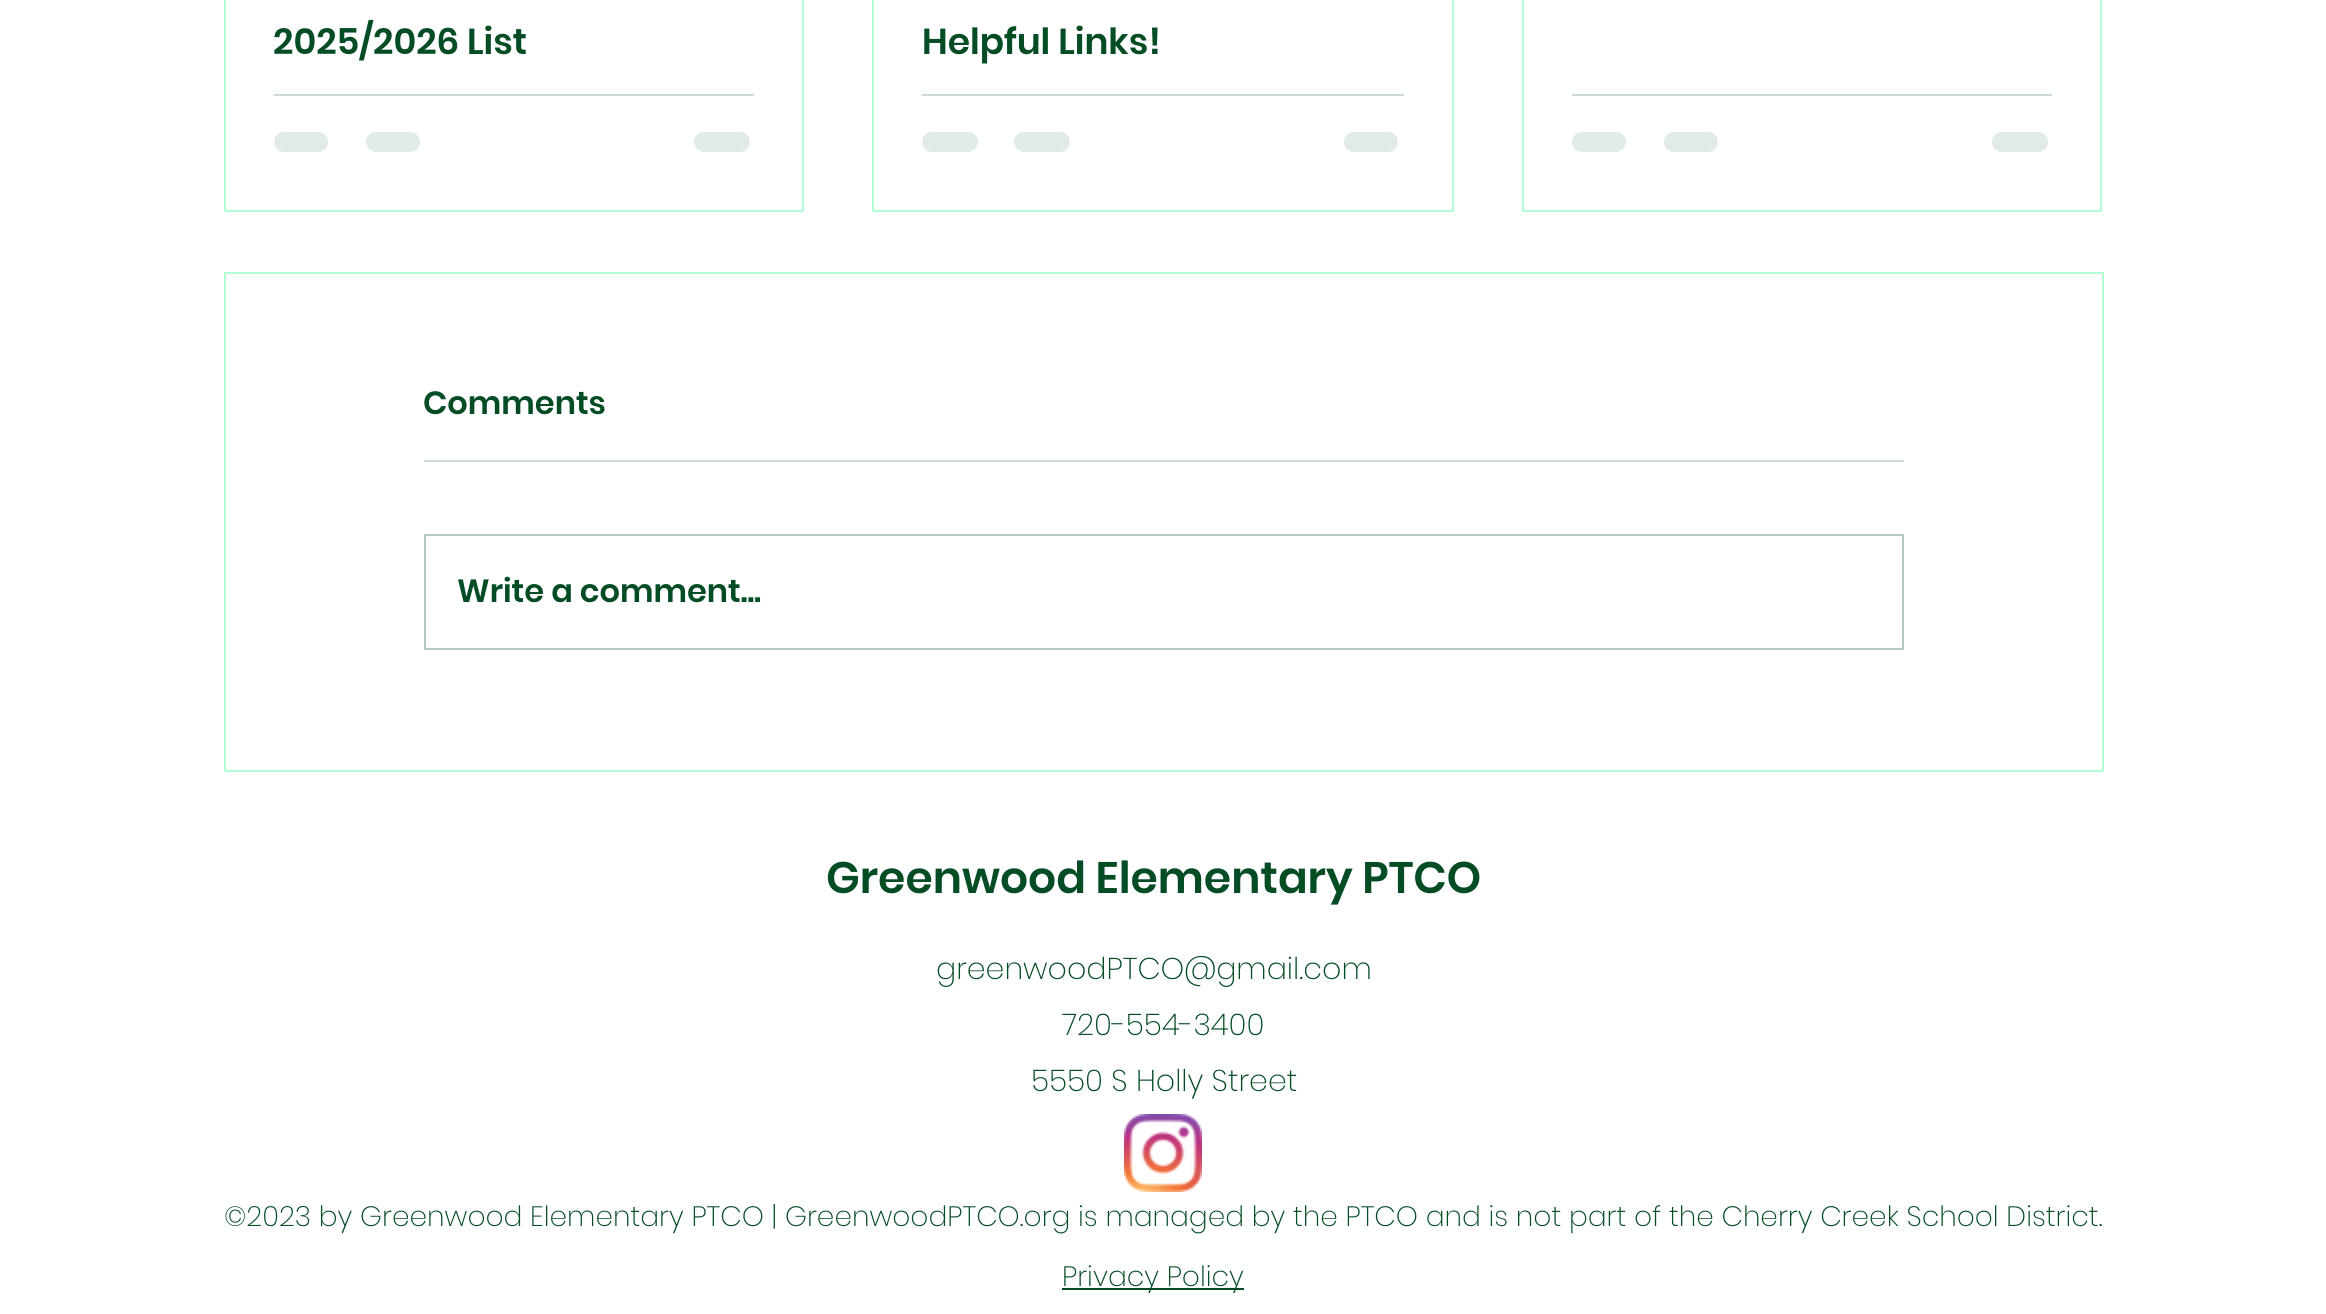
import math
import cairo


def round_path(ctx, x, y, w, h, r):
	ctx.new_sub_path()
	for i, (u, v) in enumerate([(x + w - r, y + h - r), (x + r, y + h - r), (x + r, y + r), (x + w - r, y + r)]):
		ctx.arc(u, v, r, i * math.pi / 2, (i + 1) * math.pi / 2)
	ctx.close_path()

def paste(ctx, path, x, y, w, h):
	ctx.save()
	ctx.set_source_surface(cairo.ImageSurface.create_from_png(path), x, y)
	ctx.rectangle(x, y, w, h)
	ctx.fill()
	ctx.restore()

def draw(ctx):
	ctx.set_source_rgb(1, 1, 1)
	ctx.paint()
	ctx.rectangle(225, -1, 578, 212)
	ctx.set_source_rgb(0.702, 0.984, 0.827)
	ctx.stroke()
	ctx.select_font_face('Poppins SemiBold')
	ctx.set_font_size(36)
	ctx.set_source_rgb(0.016, 0.298, 0.141)
	ctx.move_to(273, 54)
	ctx.show_text('2025/2026 List')
	ctx.set_source_rgb(0.804, 0.859, 0.827)
	ctx.rectangle(274, 94, 480, 2)
	ctx.fill()
	ctx.set_source_rgb(0.882, 0.918, 0.898)
	round_path(ctx, 274, 132, 54, 20, 10)
	ctx.fill()
	round_path(ctx, 366, 132, 54, 20, 10)
	ctx.fill()
	round_path(ctx, 694, 132, 56, 20, 10)
	ctx.fill()
	ctx.rectangle(873, -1, 580, 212)
	ctx.set_source_rgb(0.702, 0.984, 0.827)
	ctx.stroke()
	ctx.set_source_rgb(0.016, 0.298, 0.141)
	ctx.move_to(922, 54)
	ctx.show_text('Helpful Links!')
	ctx.set_source_rgb(0.804, 0.859, 0.827)
	ctx.rectangle(922, 94, 482, 2)
	ctx.fill()
	ctx.set_source_rgb(0.882, 0.918, 0.898)
	round_path(ctx, 922, 132, 56, 20, 10)
	ctx.fill()
	round_path(ctx, 1014, 132, 56, 20, 10)
	ctx.fill()
	round_path(ctx, 1344, 132, 54, 20, 10)
	ctx.fill()
	ctx.rectangle(1523, -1, 578, 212)
	ctx.set_source_rgb(0.702, 0.984, 0.827)
	ctx.stroke()
	ctx.set_source_rgb(0.804, 0.859, 0.827)
	ctx.rectangle(1572, 94, 480, 2)
	ctx.fill()
	ctx.set_source_rgb(0.882, 0.918, 0.898)
	round_path(ctx, 1572, 132, 54, 20, 10)
	ctx.fill()
	round_path(ctx, 1664, 132, 54, 20, 10)
	ctx.fill()
	round_path(ctx, 1992, 132, 56, 20, 10)
	ctx.fill()
	ctx.rectangle(225, 273, 1878, 498)
	ctx.set_source_rgb(0.702, 0.984, 0.827)
	ctx.stroke()
	ctx.set_font_size(32)
	ctx.set_source_rgb(0.016, 0.298, 0.141)
	ctx.move_to(423, 414)
	ctx.show_text('Comments')
	ctx.set_source_rgb(0.804, 0.859, 0.827)
	ctx.rectangle(424, 460, 1480, 2)
	ctx.fill()
	ctx.rectangle(425, 535, 1478, 114)
	ctx.set_source_rgb(0.706, 0.788, 0.741)
	ctx.stroke()
	ctx.set_source_rgb(0.016, 0.298, 0.141)
	ctx.move_to(457, 602)
	ctx.show_text('Write a comment...')
	ctx.set_font_size(44)
	ctx.move_to(826, 893)
	ctx.show_text('Greenwood Elementary PTCO')
	ctx.select_font_face('Poppins ExtraLight')
	ctx.set_font_size(30)
	for x, y, s in [
		(936, 979, 'greenwoodPTCO@gmail.com'),
		(1062, 1035, '720-554-3400'),
		(1031, 1091, '5550 S Holly Street'),
	]:
		ctx.move_to(x, y)
		ctx.show_text(s)
	paste(ctx, 'media/1.png', 1124, 1114, 78, 78)
	ctx.set_font_size(28)
	ctx.move_to(224, 1226)
	ctx.show_text('©2023 by Greenwood Elementary PTCO | GreenwoodPTCO.org is managed by the PTCO and is not part of the Cherry Creek School District.')
	ctx.rectangle(1062, 1288, 182, 2)
	ctx.fill()
	ctx.move_to(1062, 1286)
	ctx.show_text('Privacy Policy')


surface = cairo.ImageSurface(cairo.FORMAT_RGB24, 2326, 1314)
ctx = cairo.Context(surface)
options = cairo.FontOptions()
options.set_hint_metrics(cairo.HINT_METRICS_OFF)
options.set_hint_style(cairo.HINT_STYLE_NONE)
ctx.set_font_options(options)
ctx.set_miter_limit(4)
draw(ctx)
surface.write_to_png('image.png')
